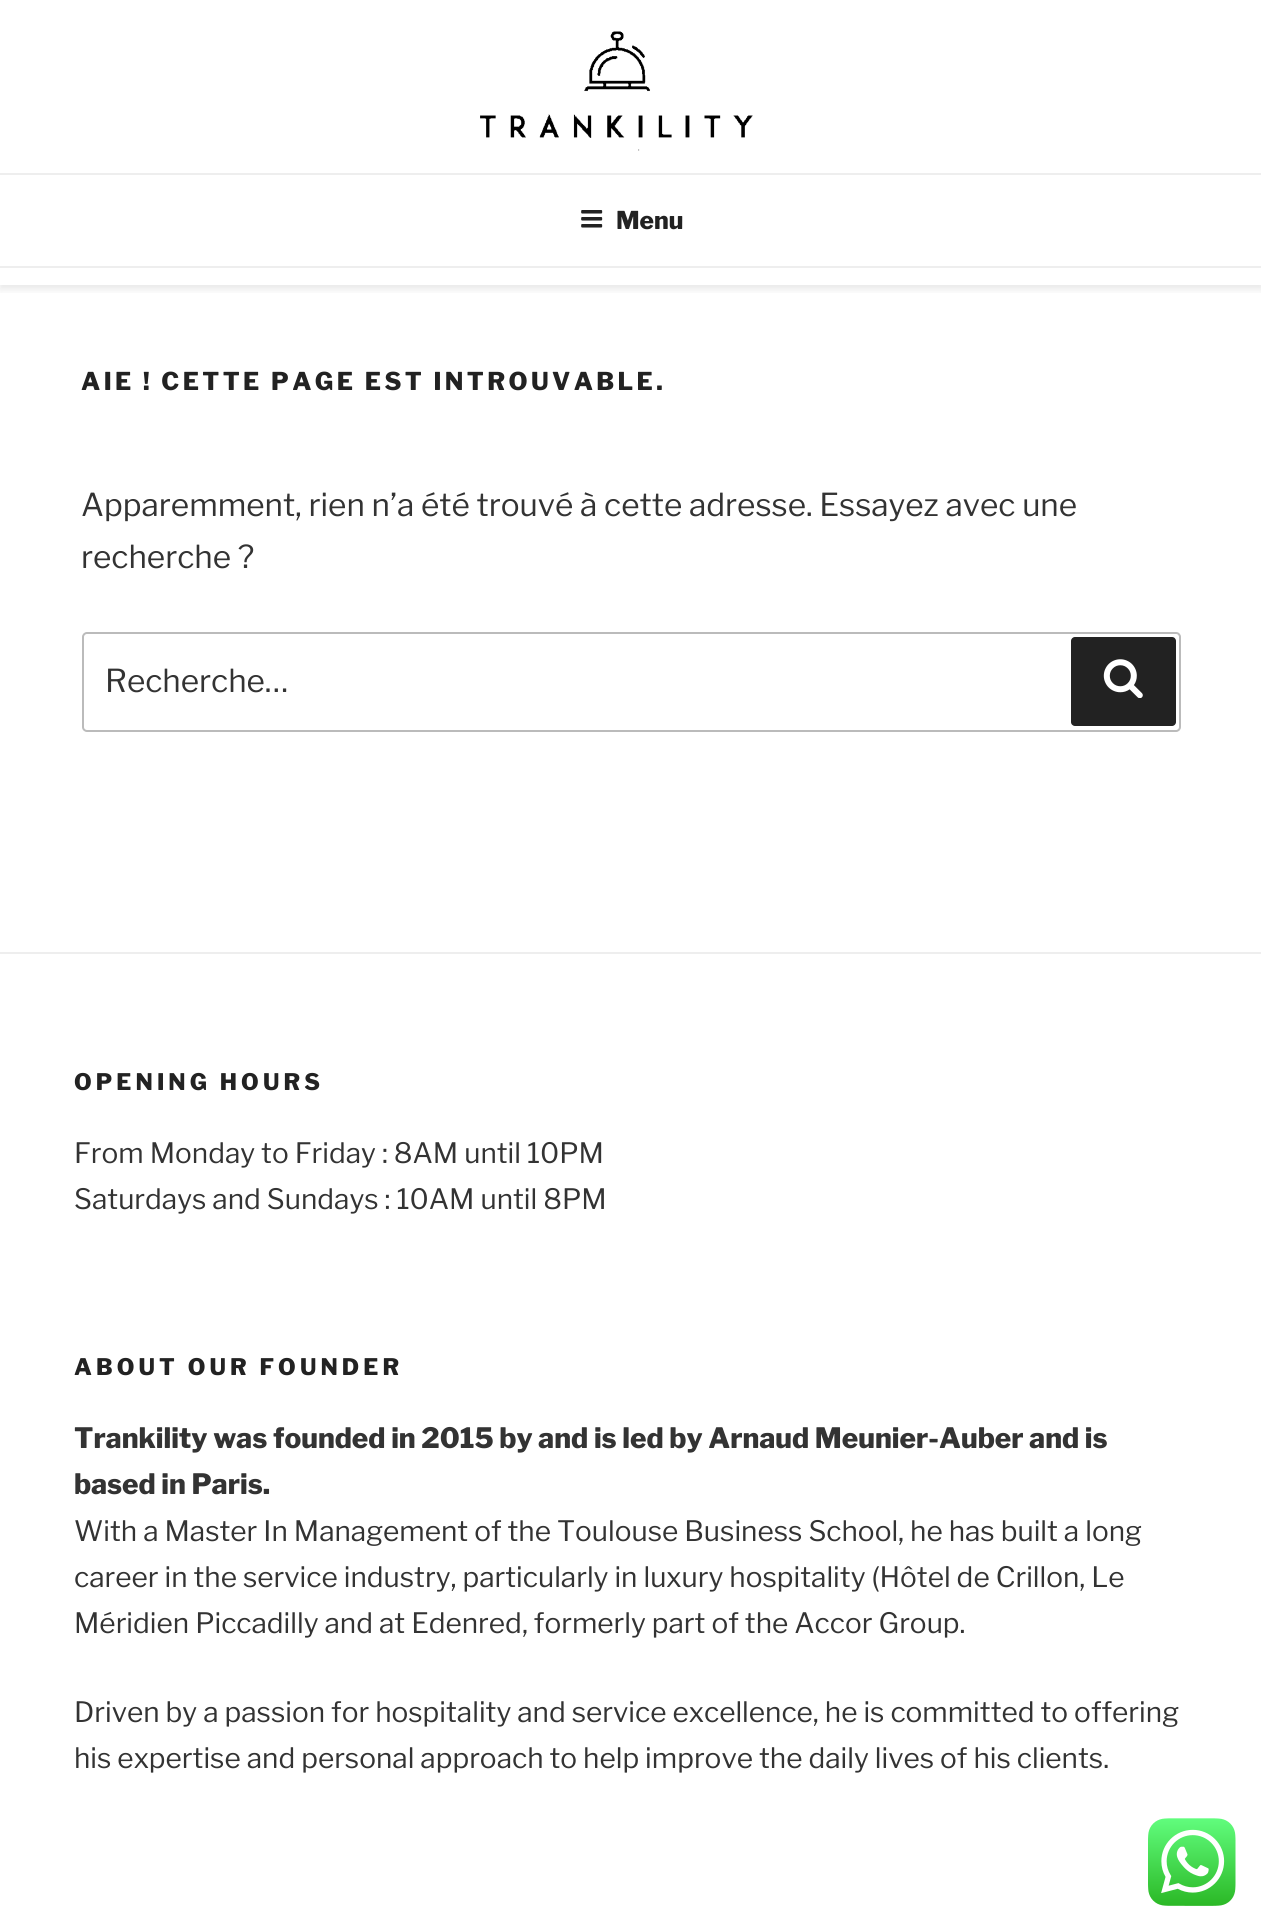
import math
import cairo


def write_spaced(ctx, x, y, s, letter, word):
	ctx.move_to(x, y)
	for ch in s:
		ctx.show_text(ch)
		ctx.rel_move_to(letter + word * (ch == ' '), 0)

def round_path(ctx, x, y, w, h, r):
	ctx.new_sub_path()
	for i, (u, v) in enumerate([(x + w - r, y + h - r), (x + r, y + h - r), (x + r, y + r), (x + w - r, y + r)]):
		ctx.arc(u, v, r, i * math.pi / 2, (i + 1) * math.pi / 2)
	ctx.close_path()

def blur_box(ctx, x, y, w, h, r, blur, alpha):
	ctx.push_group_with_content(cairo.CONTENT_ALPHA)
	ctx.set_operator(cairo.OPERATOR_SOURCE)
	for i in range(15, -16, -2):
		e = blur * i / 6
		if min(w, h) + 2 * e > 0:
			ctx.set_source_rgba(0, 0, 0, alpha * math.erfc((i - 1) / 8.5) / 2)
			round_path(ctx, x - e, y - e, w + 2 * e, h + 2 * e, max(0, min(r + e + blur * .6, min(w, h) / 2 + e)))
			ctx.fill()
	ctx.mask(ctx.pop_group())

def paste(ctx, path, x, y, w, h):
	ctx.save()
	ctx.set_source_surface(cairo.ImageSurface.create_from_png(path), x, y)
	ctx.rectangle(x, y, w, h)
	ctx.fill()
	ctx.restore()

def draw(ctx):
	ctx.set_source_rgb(1, 1, 1)
	ctx.paint()
	ctx.save()
	ctx.rectangle(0, 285, 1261, 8)
	ctx.clip()
	ctx.set_source_rgb(0, 0, 0)
	blur_box(ctx, 0, 4, 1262, 285, 0, 4.5, 0.1)
	ctx.restore()
	paste(ctx, 'media/1.png', 480, 31, 273, 120)
	ctx.set_source_rgb(0.933, 0.933, 0.933)
	ctx.rectangle(0, 173, 1261, 2)
	ctx.fill()
	ctx.rectangle(0, 266, 1261, 2)
	ctx.fill()
	paste(ctx, 'media/2.png', 581, 210, 22, 18)
	ctx.select_font_face('Libre Franklin ExtraBold')
	ctx.set_font_size(24.5)
	ctx.set_source_rgb(0.133, 0.133, 0.133)
	ctx.move_to(616, 229)
	ctx.show_text('Menu')
	write_spaced(ctx, 81, 390, 'AIE ! CETTE PAGE EST INTROUVABLE.', 3.4, 0)
	ctx.select_font_face('Libre Franklin')
	ctx.set_font_size(31.5)
	ctx.set_source_rgb(0.2, 0.2, 0.2)
	ctx.move_to(81, 516)
	ctx.show_text('Apparemment, rien n’a été trouvé à cette adresse. Essayez avec une')
	ctx.move_to(81, 568)
	ctx.show_text('recherche ?')
	round_path(ctx, 83, 633, 1097, 98, 4)
	ctx.set_source_rgb(0.733, 0.733, 0.733)
	ctx.stroke()
	ctx.set_source_rgb(0.2, 0.2, 0.2)
	ctx.move_to(105, 692)
	ctx.show_text('Recherche…')
	ctx.set_source_rgb(0.133, 0.133, 0.133)
	round_path(ctx, 1071, 637, 105, 89, 4)
	ctx.fill()
	paste(ctx, 'media/3.png', 1103, 659, 40, 39)
	ctx.set_source_rgb(0.933, 0.933, 0.933)
	ctx.rectangle(0, 952, 1261, 2)
	ctx.fill()
	ctx.select_font_face('Libre Franklin ExtraBold')
	ctx.set_font_size(22.75)
	ctx.set_source_rgb(0.133, 0.133, 0.133)
	write_spaced(ctx, 74, 1090, 'OPENING HOURS', 4.1, 0)
	ctx.select_font_face('Libre Franklin')
	ctx.set_font_size(28)
	ctx.set_source_rgb(0.2, 0.2, 0.2)
	ctx.move_to(74, 1163)
	ctx.show_text('From Monday to Friday : 8AM until 10PM')
	ctx.move_to(74, 1209)
	ctx.show_text('Saturdays and Sundays : 10AM until 8PM')
	ctx.select_font_face('Libre Franklin ExtraBold')
	ctx.set_font_size(22.75)
	ctx.set_source_rgb(0.133, 0.133, 0.133)
	write_spaced(ctx, 74, 1375, 'ABOUT OUR FOUNDER', 4.1, 0)
	ctx.set_font_size(28)
	ctx.set_source_rgb(0.2, 0.2, 0.2)
	ctx.move_to(74, 1448)
	ctx.show_text('Trankility was founded in 2015 by and is led by Arnaud Meunier-Auber and is')
	ctx.move_to(74, 1494)
	ctx.show_text('based in Paris.')
	ctx.select_font_face('Libre Franklin')
	for x, y, s in [
		(74, 1541, 'With a Master In Management of the Toulouse Business School, he has built a long'),
		(74, 1587, 'career in the service industry, particularly in luxury hospitality (Hôtel de Crillon, Le'),
		(74, 1633, 'Méridien Piccadilly and at Edenred, formerly part of the Accor Group.'),
		(74, 1722, 'Driven by a passion for hospitality and service excellence, he is committed to offering'),
		(74, 1768, 'his expertise and personal approach to help improve the daily lives of his clients.'),
	]:
		ctx.move_to(x, y)
		ctx.show_text(s)
	paste(ctx, 'media/4.png', 1148, 1818, 88, 88)


surface = cairo.ImageSurface(cairo.FORMAT_RGB24, 1261, 1932)
ctx = cairo.Context(surface)
options = cairo.FontOptions()
options.set_hint_metrics(cairo.HINT_METRICS_OFF)
options.set_hint_style(cairo.HINT_STYLE_NONE)
ctx.set_font_options(options)
ctx.set_miter_limit(4)
draw(ctx)
surface.write_to_png('image.png')
